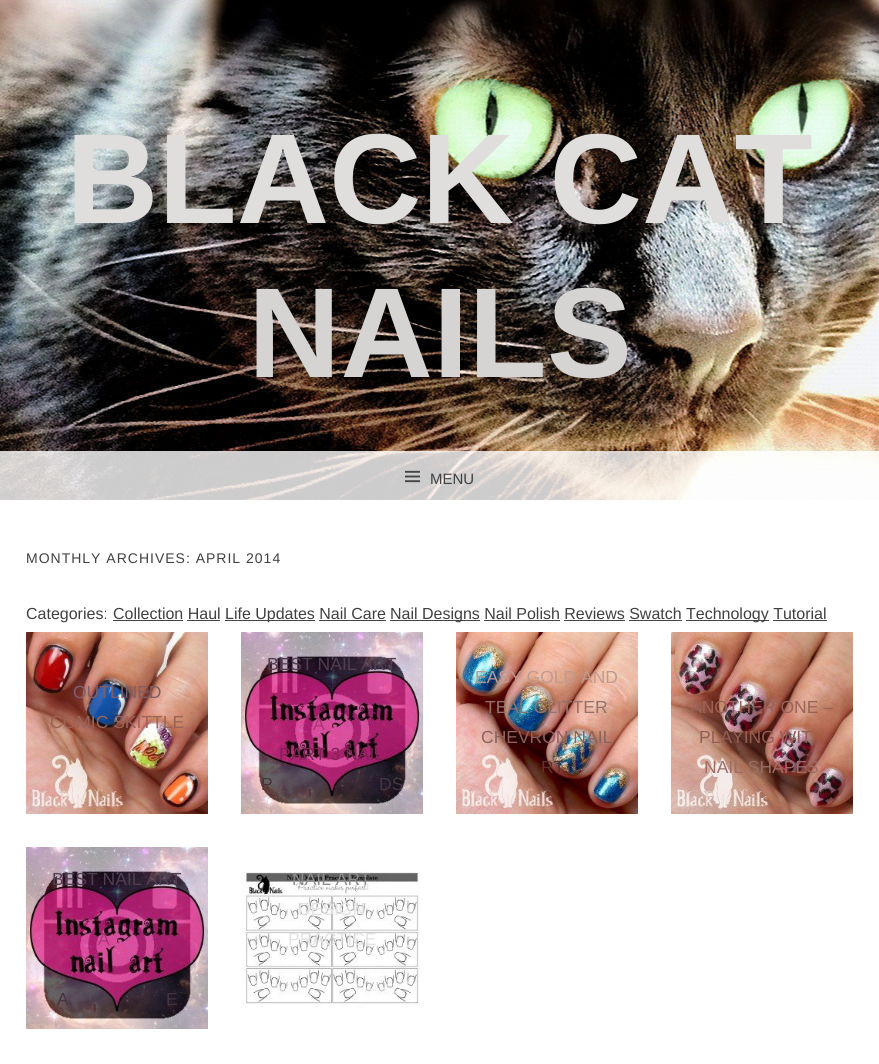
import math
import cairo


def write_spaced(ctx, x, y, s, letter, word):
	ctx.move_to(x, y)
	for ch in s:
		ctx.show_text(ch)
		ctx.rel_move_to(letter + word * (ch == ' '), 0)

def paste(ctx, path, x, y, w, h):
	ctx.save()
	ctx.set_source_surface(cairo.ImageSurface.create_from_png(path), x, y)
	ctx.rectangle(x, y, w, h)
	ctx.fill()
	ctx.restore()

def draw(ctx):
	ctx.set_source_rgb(1, 1, 1)
	ctx.paint()
	paste(ctx, 'media/1.png', 0, 0, 879, 500)
	ctx.select_font_face('Liberation Sans', cairo.FONT_SLANT_NORMAL, cairo.FONT_WEIGHT_BOLD)
	ctx.set_font_size(128)
	ctx.set_source_rgb(0.875, 0.871, 0.867)
	ctx.move_to(66, 223)
	ctx.show_text('BLACK CAT')
	ctx.set_source_rgb(0.839, 0.831, 0.827)
	ctx.move_to(248, 377)
	ctx.show_text('NAILS')
	ctx.set_source_rgba(1, 1, 1, 0.8)
	ctx.rectangle(0, 451, 879, 49)
	ctx.fill()
	paste(ctx, 'media/2.png', 405, 470, 15, 13)
	ctx.select_font_face('Liberation Sans')
	ctx.set_font_size(15)
	ctx.set_source_rgb(0.251, 0.251, 0.251)
	ctx.move_to(430, 484)
	ctx.show_text('MENU')
	ctx.set_font_size(14)
	write_spaced(ctx, 26, 563, 'MONTHLY ARCHIVES: APRIL 2014', 1, 0)
	ctx.set_font_size(16)
	ctx.move_to(26, 619)
	ctx.show_text('Categories:')
	ctx.move_to(113, 619)
	ctx.show_text('Collection Haul')
	ctx.set_source_rgb(0.267, 0.267, 0.267)
	ctx.rectangle(113, 620, 70, 1)
	ctx.fill()
	ctx.rectangle(225, 620, 90, 1)
	ctx.fill()
	ctx.set_source_rgb(0.251, 0.251, 0.251)
	ctx.move_to(225, 619)
	ctx.show_text('Life Updates Nail Care')
	ctx.set_source_rgb(0.267, 0.267, 0.267)
	ctx.rectangle(390, 620, 90, 1)
	ctx.fill()
	ctx.set_source_rgb(0.251, 0.251, 0.251)
	ctx.move_to(390, 619)
	ctx.show_text('Nail Designs Nail Polish Reviews Swatch')
	ctx.set_source_rgb(0.267, 0.267, 0.267)
	ctx.rectangle(686, 620, 83, 1)
	ctx.fill()
	ctx.set_source_rgb(0.251, 0.251, 0.251)
	ctx.move_to(686, 619)
	ctx.show_text('Technology Tutorial')
	ctx.set_source_rgb(0.267, 0.267, 0.267)
	ctx.rectangle(187, 620, 33, 1)
	ctx.rectangle(319, 620, 67, 1)
	ctx.rectangle(484, 620, 76, 1)
	ctx.rectangle(564, 620, 61, 1)
	ctx.rectangle(629, 620, 53, 1)
	ctx.rectangle(773, 620, 54, 1)
	ctx.fill()
	paste(ctx, 'media/3.png', 26, 632, 182, 182)
	ctx.set_font_size(17.5)
	ctx.set_source_rgb(0.502, 0.369, 0.4)
	ctx.move_to(73, 698)
	ctx.show_text('OUTLINED')
	ctx.set_source_rgb(0.604, 0.388, 0.345)
	ctx.move_to(50, 728)
	ctx.show_text('COMIC SKITTLE')
	paste(ctx, 'media/4.png', 241, 632, 182, 182)
	ctx.set_source_rgb(0.318, 0.247, 0.314)
	ctx.move_to(267, 670)
	ctx.show_text('BEST NAIL ART')
	ctx.set_source_rgb(0.678, 0.2, 0.463)
	ctx.move_to(313, 730)
	ctx.show_text('A')
	ctx.set_source_rgb(0.506, 0.133, 0.337)
	ctx.move_to(279, 760)
	ctx.show_text('PART 3 NAIL')
	ctx.set_source_rgb(0.271, 0.2, 0.251)
	ctx.move_to(261, 790)
	ctx.show_text('P')
	ctx.move_to(379, 790)
	ctx.show_text('DS')
	paste(ctx, 'media/5.png', 456, 632, 182, 182)
	ctx.set_source_rgb(0.745, 0.608, 0.565)
	ctx.move_to(475, 683)
	ctx.show_text('EASY GOLD AND')
	ctx.set_source_rgb(0.576, 0.447, 0.427)
	ctx.move_to(485, 713)
	ctx.show_text('TEAL GLITTER')
	ctx.set_source_rgb(0.549, 0.384, 0.365)
	ctx.move_to(481, 743)
	ctx.show_text('CHEVRON NAIL')
	ctx.set_source_rgb(0.357, 0.192, 0.169)
	ctx.move_to(541, 773)
	ctx.show_text('RT')
	paste(ctx, 'media/6.png', 671, 632, 182, 182)
	ctx.set_source_rgb(0.604, 0.388, 0.345)
	ctx.move_to(690, 713)
	ctx.show_text('ANOTHER ONE –')
	ctx.set_source_rgb(0.573, 0.369, 0.333)
	ctx.move_to(699, 743)
	ctx.show_text('PLAYING WIT')
	ctx.set_source_rgb(0.612, 0.424, 0.396)
	ctx.move_to(704, 773)
	ctx.show_text('NAIL SHAPES')
	paste(ctx, 'media/4.png', 26, 847, 182, 182)
	ctx.set_source_rgb(0.318, 0.247, 0.314)
	ctx.move_to(52, 885)
	ctx.show_text('BEST NAIL ART')
	ctx.set_source_rgb(0.678, 0.2, 0.463)
	ctx.move_to(98, 945)
	ctx.show_text('A')
	ctx.set_source_rgb(0.271, 0.2, 0.251)
	ctx.move_to(57, 1005)
	ctx.show_text('A')
	ctx.move_to(166, 1005)
	ctx.show_text('E')
	paste(ctx, 'media/7.png', 241, 871, 179, 137)
	ctx.set_source_rgb(0.549, 0.549, 0.549)
	ctx.move_to(292, 885)
	ctx.show_text('NAIL ART')
	ctx.set_source_rgb(0.894, 0.894, 0.894)
	ctx.move_to(298, 915)
	ctx.show_text('DESIGN')
	ctx.move_to(288, 945)
	ctx.show_text('PRACTICE')


surface = cairo.ImageSurface(cairo.FORMAT_RGB24, 879, 1064)
ctx = cairo.Context(surface)
options = cairo.FontOptions()
options.set_hint_metrics(cairo.HINT_METRICS_OFF)
options.set_hint_style(cairo.HINT_STYLE_NONE)
ctx.set_font_options(options)
ctx.set_miter_limit(4)
draw(ctx)
surface.write_to_png('image.png')
